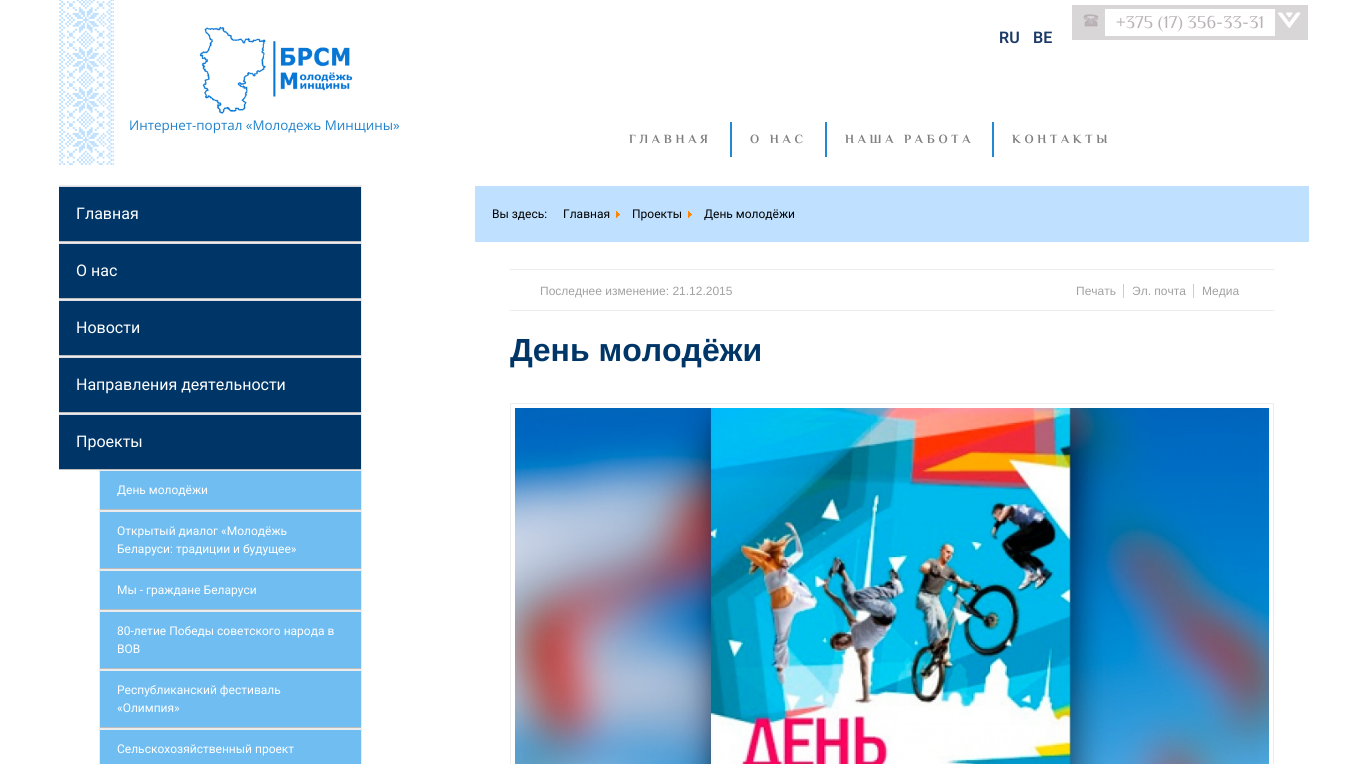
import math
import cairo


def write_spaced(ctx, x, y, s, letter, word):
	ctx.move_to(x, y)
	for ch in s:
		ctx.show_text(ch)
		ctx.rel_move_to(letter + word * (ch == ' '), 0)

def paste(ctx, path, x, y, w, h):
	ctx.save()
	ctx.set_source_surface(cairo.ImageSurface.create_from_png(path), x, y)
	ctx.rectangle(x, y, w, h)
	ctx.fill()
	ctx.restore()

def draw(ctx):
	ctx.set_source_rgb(1, 1, 1)
	ctx.paint()
	paste(ctx, 'media/1.png', 59, 0, 55, 165)
	paste(ctx, 'media/2.png', 199, 26, 154, 88)
	ctx.select_font_face('Open Sans')
	ctx.set_font_size(13.4)
	ctx.set_source_rgb(0.129, 0.514, 0.804)
	ctx.move_to(129, 130)
	ctx.show_text('Интернет-портал «Молодежь Минщины»')
	ctx.rectangle(1074, 7, 232, 31)
	ctx.set_source_rgb(0.851, 0.839, 0.847)
	ctx.set_line_width(4)
	ctx.stroke()
	ctx.rectangle(1076, 9, 29, 27)
	ctx.fill()
	paste(ctx, 'media/3.png', 1083, 14, 16, 13)
	ctx.select_font_face('Philosopher')
	ctx.set_font_size(18)
	ctx.set_source_rgb(0.729, 0.698, 0.718)
	ctx.move_to(1116, 28)
	ctx.show_text('+375 (17) 356-33-31')
	ctx.set_source_rgb(0.851, 0.839, 0.847)
	ctx.rectangle(1275, 9, 29, 27)
	ctx.fill()
	paste(ctx, 'media/4.png', 1278, 12, 23, 16)
	ctx.select_font_face('Roboto SemiBold')
	ctx.set_font_size(16)
	ctx.set_source_rgb(0.106, 0.227, 0.404)
	ctx.move_to(999, 43)
	ctx.show_text('RU')
	ctx.move_to(1033, 43)
	ctx.show_text('BE')
	ctx.select_font_face('Philosopher', cairo.FONT_SLANT_NORMAL, cairo.FONT_WEIGHT_BOLD)
	ctx.set_font_size(12.5)
	ctx.set_source_rgb(0.502, 0.502, 0.502)
	write_spaced(ctx, 629, 143, 'ГЛАВНАЯ', 3.75, 0)
	ctx.set_source_rgb(0.137, 0.533, 0.827)
	ctx.rectangle(730, 122, 2, 35)
	ctx.fill()
	ctx.set_source_rgb(0.502, 0.502, 0.502)
	write_spaced(ctx, 750, 143, 'О НАС', 3.75, 0)
	ctx.set_source_rgb(0.137, 0.533, 0.827)
	ctx.rectangle(825, 122, 2, 35)
	ctx.fill()
	ctx.set_source_rgb(0.502, 0.502, 0.502)
	write_spaced(ctx, 845, 143, 'НАША РАБОТА', 3.75, 0)
	ctx.set_source_rgb(0.137, 0.533, 0.827)
	ctx.rectangle(992, 122, 2, 35)
	ctx.fill()
	ctx.set_source_rgb(0.502, 0.502, 0.502)
	write_spaced(ctx, 1012, 143, 'КОНТАКТЫ', 3.75, 0)
	ctx.set_source_rgb(0.922, 0.922, 0.922)
	ctx.rectangle(59, 185, 303, 1)
	ctx.rectangle(361, 185, 1, 579)
	ctx.fill()
	ctx.set_source_rgb(0, 0.212, 0.404)
	ctx.rectangle(59, 187, 302, 54)
	ctx.fill()
	ctx.set_source_rgb(0.878, 0.855, 0.886)
	ctx.rectangle(59, 186, 302, 1)
	ctx.fill()
	ctx.set_source_rgb(0.737, 0.737, 0.737)
	ctx.rectangle(59, 241, 302, 1)
	ctx.fill()
	ctx.select_font_face('Roboto')
	ctx.set_font_size(16)
	ctx.set_source_rgb(1, 1, 1)
	ctx.move_to(76, 219)
	ctx.show_text('Главная')
	ctx.set_source_rgb(0.922, 0.922, 0.922)
	ctx.rectangle(59, 242, 302, 1)
	ctx.fill()
	ctx.set_source_rgb(0, 0.212, 0.404)
	ctx.rectangle(59, 244, 302, 54)
	ctx.fill()
	ctx.set_source_rgb(0.878, 0.855, 0.886)
	ctx.rectangle(59, 243, 302, 1)
	ctx.fill()
	ctx.set_source_rgb(0.737, 0.737, 0.737)
	ctx.rectangle(59, 298, 302, 1)
	ctx.fill()
	ctx.set_source_rgb(1, 1, 1)
	ctx.move_to(76, 276)
	ctx.show_text('О нас')
	ctx.set_source_rgb(0.922, 0.922, 0.922)
	ctx.rectangle(59, 299, 302, 1)
	ctx.fill()
	ctx.set_source_rgb(0, 0.212, 0.404)
	ctx.rectangle(59, 301, 302, 54)
	ctx.fill()
	ctx.set_source_rgb(0.878, 0.855, 0.886)
	ctx.rectangle(59, 300, 302, 1)
	ctx.fill()
	ctx.set_source_rgb(0.737, 0.737, 0.737)
	ctx.rectangle(59, 355, 302, 1)
	ctx.fill()
	ctx.set_source_rgb(1, 1, 1)
	ctx.move_to(76, 333)
	ctx.show_text('Новости')
	ctx.set_source_rgb(0.922, 0.922, 0.922)
	ctx.rectangle(59, 356, 302, 1)
	ctx.fill()
	ctx.set_source_rgb(0, 0.212, 0.404)
	ctx.rectangle(59, 358, 302, 54)
	ctx.fill()
	ctx.set_source_rgb(0.878, 0.855, 0.886)
	ctx.rectangle(59, 357, 302, 1)
	ctx.fill()
	ctx.set_source_rgb(0.737, 0.737, 0.737)
	ctx.rectangle(59, 412, 302, 1)
	ctx.fill()
	ctx.set_source_rgb(1, 1, 1)
	ctx.move_to(76, 390)
	ctx.show_text('Направления деятельности')
	ctx.set_source_rgb(0.922, 0.922, 0.922)
	ctx.rectangle(59, 413, 302, 1)
	ctx.fill()
	ctx.set_source_rgb(0, 0.212, 0.404)
	ctx.rectangle(59, 415, 302, 54)
	ctx.fill()
	ctx.set_source_rgb(0.878, 0.855, 0.886)
	ctx.rectangle(59, 414, 302, 1)
	ctx.fill()
	ctx.set_source_rgb(0.737, 0.737, 0.737)
	ctx.rectangle(59, 469, 302, 1)
	ctx.fill()
	ctx.set_source_rgb(1, 1, 1)
	ctx.move_to(76, 447)
	ctx.show_text('Проекты')
	ctx.set_source_rgb(0.922, 0.922, 0.922)
	ctx.rectangle(99, 470, 1, 40)
	ctx.fill()
	ctx.set_source_rgb(0.439, 0.741, 0.949)
	ctx.rectangle(100, 471, 261, 38)
	ctx.fill()
	ctx.set_source_rgb(0.922, 0.922, 0.922)
	ctx.rectangle(100, 470, 261, 1)
	ctx.fill()
	ctx.set_source_rgb(0.737, 0.737, 0.737)
	ctx.rectangle(100, 509, 261, 1)
	ctx.fill()
	ctx.set_font_size(12)
	ctx.set_source_rgb(1, 1, 1)
	ctx.move_to(117, 494)
	ctx.show_text('День молодёжи')
	ctx.set_source_rgb(0.922, 0.922, 0.922)
	ctx.rectangle(99, 510, 262, 1)
	ctx.rectangle(99, 510, 1, 59)
	ctx.fill()
	ctx.set_source_rgb(0.439, 0.741, 0.949)
	ctx.rectangle(100, 512, 261, 56)
	ctx.fill()
	ctx.set_source_rgb(0.922, 0.922, 0.922)
	ctx.rectangle(100, 511, 261, 1)
	ctx.fill()
	ctx.set_source_rgb(0.737, 0.737, 0.737)
	ctx.rectangle(100, 568, 261, 1)
	ctx.fill()
	ctx.set_source_rgb(1, 1, 1)
	ctx.move_to(117, 535)
	ctx.show_text('Открытый диалог «Молодёжь')
	ctx.move_to(117, 553)
	ctx.show_text('Беларуси: традиции и будущее»')
	ctx.set_source_rgb(0.922, 0.922, 0.922)
	ctx.rectangle(99, 569, 262, 1)
	ctx.rectangle(99, 569, 1, 41)
	ctx.fill()
	ctx.set_source_rgb(0.439, 0.741, 0.949)
	ctx.rectangle(100, 571, 261, 38)
	ctx.fill()
	ctx.set_source_rgb(0.922, 0.922, 0.922)
	ctx.rectangle(100, 570, 261, 1)
	ctx.fill()
	ctx.set_source_rgb(0.737, 0.737, 0.737)
	ctx.rectangle(100, 609, 261, 1)
	ctx.fill()
	ctx.set_source_rgb(1, 1, 1)
	ctx.move_to(117, 594)
	ctx.show_text('Мы - граждане Беларуси')
	ctx.set_source_rgb(0.922, 0.922, 0.922)
	ctx.rectangle(99, 610, 262, 1)
	ctx.rectangle(99, 610, 1, 59)
	ctx.fill()
	ctx.set_source_rgb(0.439, 0.741, 0.949)
	ctx.rectangle(100, 612, 261, 56)
	ctx.fill()
	ctx.set_source_rgb(0.922, 0.922, 0.922)
	ctx.rectangle(100, 611, 261, 1)
	ctx.fill()
	ctx.set_source_rgb(0.737, 0.737, 0.737)
	ctx.rectangle(100, 668, 261, 1)
	ctx.fill()
	ctx.set_source_rgb(1, 1, 1)
	ctx.move_to(117, 635)
	ctx.show_text('80-летие Победы советского народа в')
	ctx.move_to(117, 653)
	ctx.show_text('ВОВ')
	ctx.set_source_rgb(0.922, 0.922, 0.922)
	ctx.rectangle(99, 669, 262, 1)
	ctx.rectangle(99, 669, 1, 59)
	ctx.fill()
	ctx.set_source_rgb(0.439, 0.741, 0.949)
	ctx.rectangle(100, 671, 261, 56)
	ctx.fill()
	ctx.set_source_rgb(0.922, 0.922, 0.922)
	ctx.rectangle(100, 670, 261, 1)
	ctx.fill()
	ctx.set_source_rgb(0.737, 0.737, 0.737)
	ctx.rectangle(100, 727, 261, 1)
	ctx.fill()
	ctx.set_source_rgb(1, 1, 1)
	ctx.move_to(117, 694)
	ctx.show_text('Республиканский фестиваль')
	ctx.move_to(117, 712)
	ctx.show_text('«Олимпия»')
	ctx.set_source_rgb(0.922, 0.922, 0.922)
	ctx.rectangle(99, 728, 262, 1)
	ctx.rectangle(99, 728, 1, 36)
	ctx.fill()
	ctx.set_source_rgb(0.439, 0.741, 0.949)
	ctx.rectangle(100, 730, 261, 34)
	ctx.fill()
	ctx.set_source_rgb(0.922, 0.922, 0.922)
	ctx.rectangle(100, 729, 261, 1)
	ctx.fill()
	ctx.set_source_rgb(1, 1, 1)
	ctx.move_to(117, 753)
	ctx.show_text('Сельскохозяйственный проект')
	ctx.set_source_rgb(0.749, 0.882, 1)
	ctx.rectangle(475, 186, 834, 56)
	ctx.fill()
	ctx.set_source_rgb(0, 0, 0)
	ctx.move_to(492, 218)
	ctx.show_text('Вы здесь:')
	ctx.move_to(563, 218)
	ctx.show_text('Главная')
	paste(ctx, 'media/5.png', 616, 211, 4, 7)
	ctx.move_to(632, 218)
	ctx.show_text('Проекты')
	paste(ctx, 'media/5.png', 688, 211, 4, 7)
	ctx.move_to(704, 218)
	ctx.show_text('День молодёжи')
	ctx.set_source_rgb(0.929, 0.929, 0.929)
	ctx.rectangle(510, 269, 764, 1)
	ctx.fill()
	ctx.rectangle(510, 310, 764, 1)
	ctx.fill()
	ctx.select_font_face('Liberation Sans')
	ctx.set_source_rgb(0.631, 0.631, 0.631)
	for x, y, s in [
		(540, 295, 'Последнее изменение: 21.12.2015'),
		(1076, 295, 'Печать'),
		(1132, 295, 'Эл. почта'),
	]:
		ctx.move_to(x, y)
		ctx.show_text(s)
	ctx.set_source_rgb(0.8, 0.8, 0.8)
	ctx.rectangle(1123, 284, 1, 14)
	ctx.fill()
	ctx.set_source_rgb(0.631, 0.631, 0.631)
	ctx.move_to(1202, 295)
	ctx.show_text('Медиа')
	ctx.set_source_rgb(0.8, 0.8, 0.8)
	ctx.rectangle(1193, 284, 1, 14)
	ctx.fill()
	ctx.select_font_face('Liberation Sans', cairo.FONT_SLANT_NORMAL, cairo.FONT_WEIGHT_BOLD)
	ctx.set_font_size(32)
	ctx.set_source_rgb(0, 0.212, 0.404)
	ctx.move_to(510, 361)
	ctx.show_text('День молодёжи')
	ctx.rectangle(510.5, 403.5, 763, 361)
	ctx.set_source_rgb(0.929, 0.929, 0.929)
	ctx.set_line_width(1)
	ctx.stroke()
	paste(ctx, 'media/6.png', 515, 408, 754, 356)


surface = cairo.ImageSurface(cairo.FORMAT_RGB24, 1367, 764)
ctx = cairo.Context(surface)
options = cairo.FontOptions()
options.set_hint_metrics(cairo.HINT_METRICS_OFF)
options.set_hint_style(cairo.HINT_STYLE_NONE)
ctx.set_font_options(options)
ctx.set_miter_limit(4)
draw(ctx)
surface.write_to_png('image.png')
